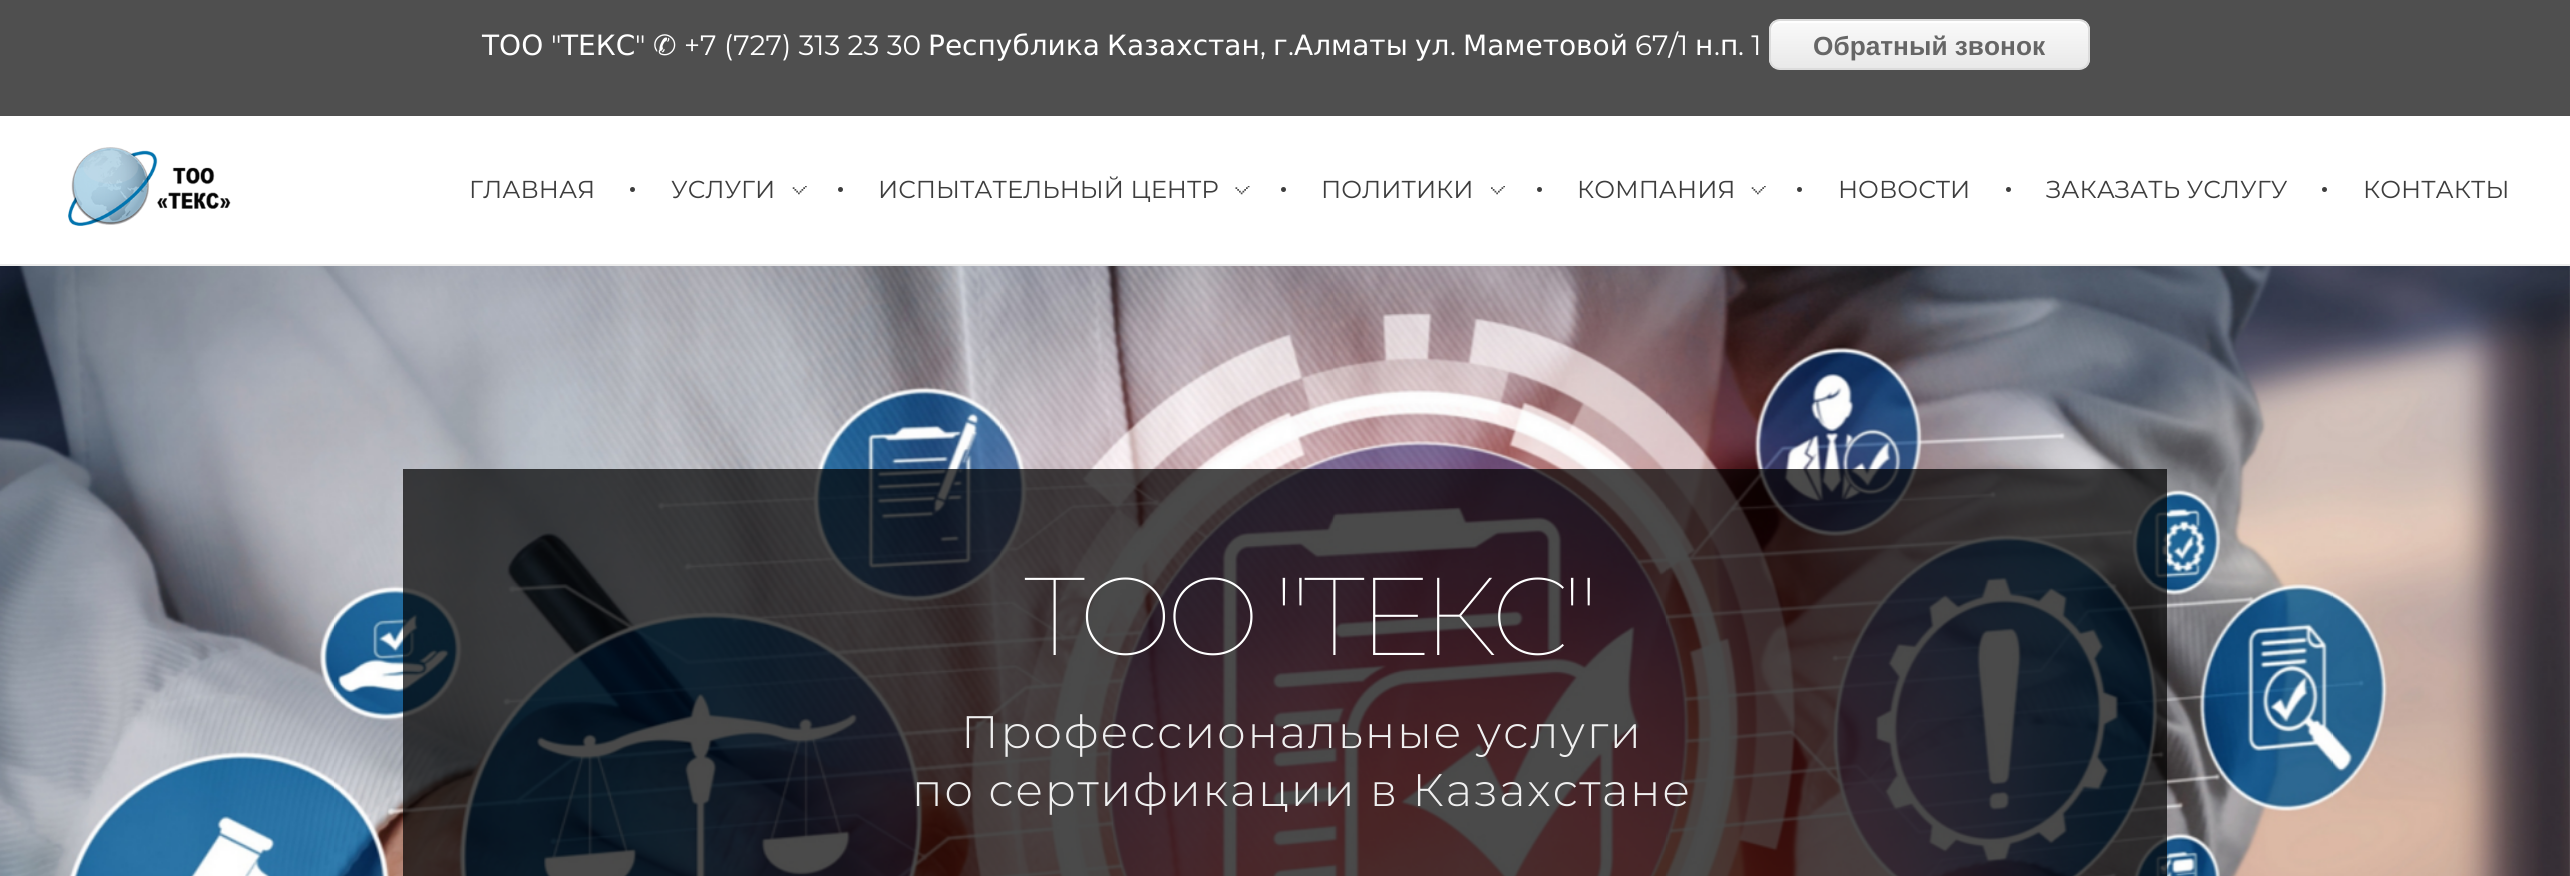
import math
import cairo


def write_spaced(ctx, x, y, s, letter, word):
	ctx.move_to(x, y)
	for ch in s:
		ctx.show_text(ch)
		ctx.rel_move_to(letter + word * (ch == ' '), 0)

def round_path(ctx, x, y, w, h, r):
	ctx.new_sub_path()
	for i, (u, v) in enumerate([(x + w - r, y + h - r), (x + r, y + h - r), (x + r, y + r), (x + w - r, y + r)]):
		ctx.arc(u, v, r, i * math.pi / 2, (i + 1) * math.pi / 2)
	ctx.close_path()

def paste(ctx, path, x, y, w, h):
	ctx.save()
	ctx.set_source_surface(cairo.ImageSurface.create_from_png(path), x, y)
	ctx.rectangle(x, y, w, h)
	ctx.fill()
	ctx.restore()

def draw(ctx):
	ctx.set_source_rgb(1, 1, 1)
	ctx.paint()
	ctx.set_source_rgb(0.31, 0.31, 0.31)
	ctx.rectangle(0, 0, 2570, 116)
	ctx.fill()
	ctx.select_font_face('DejaVu Sans')
	ctx.set_font_size(28)
	ctx.set_source_rgb(1, 1, 1)
	ctx.move_to(482, 55)
	ctx.show_text('ТОО')
	ctx.select_font_face('Montserrat')
	ctx.move_to(551, 55)
	ctx.show_text('"')
	ctx.select_font_face('DejaVu Sans')
	ctx.move_to(561, 55)
	ctx.show_text('ТЕКС')
	ctx.select_font_face('Montserrat')
	ctx.move_to(635, 55)
	ctx.show_text('"')
	ctx.select_font_face('DejaVu Sans')
	ctx.move_to(653, 55)
	ctx.show_text('✆')
	ctx.select_font_face('Montserrat')
	ctx.move_to(684, 55)
	ctx.show_text('+7 (727) 313 23 30')
	ctx.select_font_face('DejaVu Sans')
	for x, y, s in [
		(928, 55, 'Республика'),
		(1107, 55, 'Казахстан'),
		(1273, 55, 'г'),
		(1294, 55, 'Алматы'),
		(1415, 55, 'ул'),
		(1463, 55, 'Маметовой'),
	]:
		ctx.move_to(x, y)
		ctx.show_text(s)
	ctx.select_font_face('Montserrat')
	ctx.move_to(1635, 55)
	ctx.show_text('67/1')
	ctx.select_font_face('DejaVu Sans')
	ctx.move_to(1695, 55)
	ctx.show_text('н')
	ctx.move_to(1720, 55)
	ctx.show_text('п')
	ctx.select_font_face('Montserrat')
	ctx.move_to(1738, 55)
	ctx.show_text('. 1')
	ctx.save()
	round_path(ctx, 1769, 19, 321, 51, 11)
	ctx.clip()
	gradient = cairo.LinearGradient(1929, 21, 1929, 68)
	gradient.add_color_stop_rgba(0.05, 0.976, 0.976, 0.976, 1)
	gradient.add_color_stop_rgba(1, 0.914, 0.914, 0.914, 1)
	ctx.set_source(gradient)
	ctx.rectangle(1769, 21, 321, 47)
	ctx.fill()
	ctx.restore()
	ctx.new_path()
	ctx.move_to(1780, 23)
	ctx.line_to(2079, 23)
	ctx.curve_to(2084, 23, 2088, 27, 2088, 32)
	ctx.line_to(2088, 30)
	ctx.curve_to(2088, 25, 2084, 21, 2079, 21)
	ctx.line_to(1780, 21)
	ctx.curve_to(1775, 21, 1771, 25, 1771, 30)
	ctx.line_to(1771, 32)
	ctx.curve_to(1771, 27, 1775, 23, 1780, 23)
	ctx.close_path()
	ctx.fill()
	round_path(ctx, 1770, 20, 319, 49, 10)
	ctx.set_source_rgb(0.863, 0.863, 0.863)
	ctx.stroke()
	ctx.select_font_face('Liberation Sans', cairo.FONT_SLANT_NORMAL, cairo.FONT_WEIGHT_BOLD)
	ctx.set_font_size(26.25)
	ctx.set_source_rgb(0.4, 0.4, 0.4)
	ctx.move_to(1813, 55)
	ctx.show_text('Обратный звонок')
	ctx.select_font_face('Montserrat')
	ctx.set_font_size(28)
	ctx.set_source_rgb(1, 1, 1)
	for x, y, s in [
		(1260, 55, ','),
		(1288, 55, '.'),
		(1450, 55, '.'),
		(1714, 55, '.'),
	]:
		ctx.move_to(x, y)
		ctx.show_text(s)
	ctx.set_source_rgb(0.918, 0.918, 0.918)
	ctx.rectangle(0, 264, 2570, 2)
	ctx.fill()
	paste(ctx, 'media/1.png', 68, 147, 163, 79)
	ctx.set_font_size(24.5)
	ctx.set_source_rgb(0.239, 0.239, 0.239)
	ctx.move_to(469, 198)
	ctx.show_text('ГЛАВНАЯ')
	ctx.new_path()
	ctx.arc(632.5, 189.5, 2.5, 0, 2 * math.pi)
	ctx.fill()
	ctx.move_to(671, 198)
	ctx.show_text('УСЛУГИ')
	paste(ctx, 'media/2.png', 792, 186, 15, 9)
	ctx.arc(840.5, 189.5, 2.5, 0, 2 * math.pi)
	ctx.fill()
	ctx.move_to(878, 198)
	ctx.show_text('ИСПЫТАТЕЛЬНЫЙ ЦЕНТР')
	paste(ctx, 'media/3.png', 1235, 186, 15, 9)
	ctx.arc(1283.5, 189.5, 2.5, 0, 2 * math.pi)
	ctx.fill()
	ctx.move_to(1321, 198)
	ctx.show_text('ПОЛИТИКИ')
	paste(ctx, 'media/4.png', 1491, 186, 14, 9)
	ctx.arc(1539.5, 189.5, 2.5, 0, 2 * math.pi)
	ctx.fill()
	ctx.move_to(1577, 198)
	ctx.show_text('КОМПАНИЯ')
	paste(ctx, 'media/2.png', 1751, 186, 15, 9)
	ctx.arc(1799.5, 189.5, 2.5, 0, 2 * math.pi)
	ctx.fill()
	ctx.move_to(1838, 198)
	ctx.show_text('НОВОСТИ')
	ctx.new_path()
	ctx.arc(2008.5, 189.5, 2.5, 0, 2 * math.pi)
	ctx.fill()
	ctx.move_to(2046, 198)
	ctx.show_text('ЗАКАЗАТЬ УСЛУГУ')
	ctx.new_path()
	ctx.arc(2324.5, 189.5, 2.5, 0, 2 * math.pi)
	ctx.fill()
	ctx.move_to(2363, 198)
	ctx.show_text('КОНТАКТЫ')
	paste(ctx, 'media/5.png', 0, 266, 2570, 610)
	ctx.set_source_rgba(0, 0, 0, 0.71)
	ctx.rectangle(403, 469, 1764, 407)
	ctx.fill()
	ctx.select_font_face('Montserrat Thin')
	ctx.set_font_size(110.25)
	ctx.set_source_rgb(1, 1, 1)
	write_spaced(ctx, 1024, 655, 'ТОО "ТЕКС"', -7, 0)
	ctx.select_font_face('Montserrat Light')
	ctx.set_font_size(45.5)
	ctx.set_source_rgb(0.937, 0.937, 0.937)
	write_spaced(ctx, 961, 748, 'Профессиональные услуги', 1.75, 0)
	write_spaced(ctx, 912, 806, 'по сертификации в Казахстане', 1.75, 0)


surface = cairo.ImageSurface(cairo.FORMAT_RGB24, 2570, 876)
ctx = cairo.Context(surface)
options = cairo.FontOptions()
options.set_hint_metrics(cairo.HINT_METRICS_OFF)
options.set_hint_style(cairo.HINT_STYLE_NONE)
ctx.set_font_options(options)
ctx.set_miter_limit(4)
draw(ctx)
surface.write_to_png('image.png')
